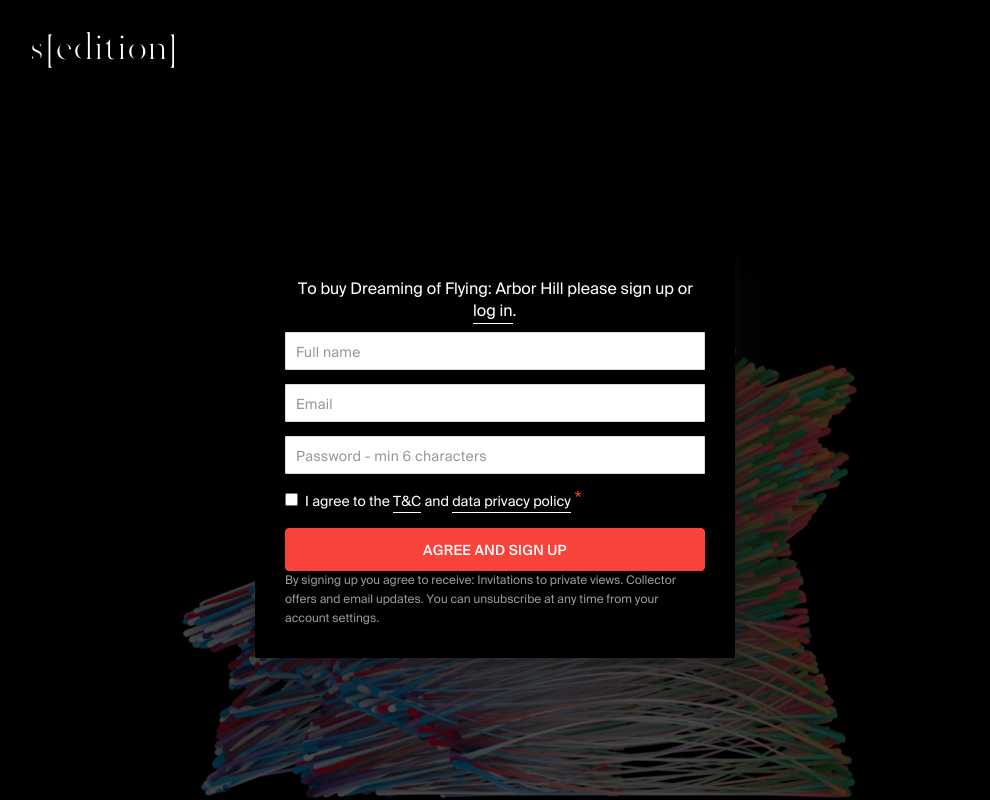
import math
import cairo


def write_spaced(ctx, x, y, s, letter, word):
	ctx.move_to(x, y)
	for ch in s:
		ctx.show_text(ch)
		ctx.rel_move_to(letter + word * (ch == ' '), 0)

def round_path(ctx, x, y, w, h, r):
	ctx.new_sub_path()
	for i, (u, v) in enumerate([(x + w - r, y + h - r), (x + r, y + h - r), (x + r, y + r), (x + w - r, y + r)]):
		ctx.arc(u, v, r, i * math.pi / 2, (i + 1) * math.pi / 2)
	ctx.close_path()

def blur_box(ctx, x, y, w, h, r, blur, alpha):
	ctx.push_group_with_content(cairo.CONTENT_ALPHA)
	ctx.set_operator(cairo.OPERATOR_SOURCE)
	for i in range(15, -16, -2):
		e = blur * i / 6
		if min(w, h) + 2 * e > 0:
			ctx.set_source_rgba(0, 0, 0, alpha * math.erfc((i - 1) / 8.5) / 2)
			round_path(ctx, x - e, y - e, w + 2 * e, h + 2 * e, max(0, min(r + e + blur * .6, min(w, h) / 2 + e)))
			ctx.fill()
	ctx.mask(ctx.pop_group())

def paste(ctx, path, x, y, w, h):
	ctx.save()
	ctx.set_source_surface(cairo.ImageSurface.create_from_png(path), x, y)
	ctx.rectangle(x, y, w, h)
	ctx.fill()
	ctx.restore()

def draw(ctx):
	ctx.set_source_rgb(1, 1, 1)
	ctx.paint()
	paste(ctx, 'media/2.png', 0, 0, 990, 800)
	paste(ctx, 'media/1.png', 32, 32, 142, 36)
	ctx.set_source_rgb(0.067, 0.067, 0.086)
	blur_box(ctx, 271, 280, 480, 410, 2, 16, 0.2)
	blur_box(ctx, 259, 256, 480, 410, 2, 4, 0.2)
	ctx.set_source_rgb(0, 0, 0)
	round_path(ctx, 255, 248, 480, 410, 2)
	ctx.fill()
	ctx.select_font_face('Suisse')
	ctx.set_font_size(16)
	ctx.set_source_rgb(1, 1, 1)
	ctx.move_to(298, 294)
	ctx.show_text('To buy Dreaming of Flying: Arbor Hill please sign up or')
	ctx.move_to(473, 316)
	ctx.show_text('log in.')
	ctx.rectangle(473, 323, 40, 1)
	ctx.fill()
	round_path(ctx, 285.5, 332.5, 419, 37, 0.5)
	ctx.fill_preserve()
	ctx.set_source_rgb(0.863, 0.863, 0.875)
	ctx.set_line_width(1)
	ctx.stroke()
	ctx.set_font_size(14)
	ctx.set_source_rgb(0.6, 0.6, 0.612)
	write_spaced(ctx, 296, 357, 'Full name', 0.25, 0)
	ctx.set_source_rgb(1, 1, 1)
	round_path(ctx, 285.5, 384.5, 419, 37, 0.5)
	ctx.fill_preserve()
	ctx.set_source_rgb(0.863, 0.863, 0.875)
	ctx.stroke()
	ctx.set_source_rgb(0.6, 0.6, 0.612)
	write_spaced(ctx, 296, 409, 'Email', 0.25, 0)
	ctx.set_source_rgb(1, 1, 1)
	round_path(ctx, 285.5, 436.5, 419, 37, 0.5)
	ctx.fill_preserve()
	ctx.set_source_rgb(0.863, 0.863, 0.875)
	ctx.stroke()
	ctx.set_source_rgb(0.6, 0.6, 0.612)
	write_spaced(ctx, 296, 461, 'Password - min 6 characters', 0.25, 0)
	ctx.set_source_rgb(1, 1, 1)
	round_path(ctx, 285.5, 493.5, 12, 12, 1.5)
	ctx.fill_preserve()
	ctx.set_source_rgb(0.463, 0.463, 0.463)
	ctx.stroke()
	ctx.set_source_rgb(1, 1, 1)
	ctx.move_to(305, 506)
	ctx.show_text('I agree to the T&C and data privacy policy')
	ctx.rectangle(393, 512, 28, 1)
	ctx.fill()
	ctx.rectangle(452, 512, 119, 1)
	ctx.fill()
	ctx.select_font_face('Suisse Light')
	ctx.set_font_size(21)
	ctx.set_source_rgb(1, 0.22, 0.137)
	ctx.move_to(574, 506)
	ctx.show_text('*')
	ctx.set_source_rgb(0.973, 0.259, 0.227)
	round_path(ctx, 285, 528, 420, 43, 4)
	ctx.fill()
	ctx.select_font_face('Suisse Medium')
	ctx.set_font_size(14)
	ctx.set_source_rgb(1, 1, 1)
	write_spaced(ctx, 423, 555, 'AGREE AND SIGN UP', 0.25, 0)
	ctx.select_font_face('Suisse')
	ctx.set_font_size(11.9)
	ctx.set_source_rgb(0.6, 0.6, 0.612)
	for x, y, s in [
		(285, 584, 'By signing up you agree to receive: Invitations to private views. Collector'),
		(285, 603, 'offers and email updates. You can unsubscribe at any time from your'),
		(285, 622, 'account settings.'),
	]:
		ctx.move_to(x, y)
		ctx.show_text(s)


surface = cairo.ImageSurface(cairo.FORMAT_RGB24, 990, 800)
ctx = cairo.Context(surface)
options = cairo.FontOptions()
options.set_hint_metrics(cairo.HINT_METRICS_OFF)
options.set_hint_style(cairo.HINT_STYLE_NONE)
ctx.set_font_options(options)
ctx.set_miter_limit(4)
draw(ctx)
surface.write_to_png('image.png')
